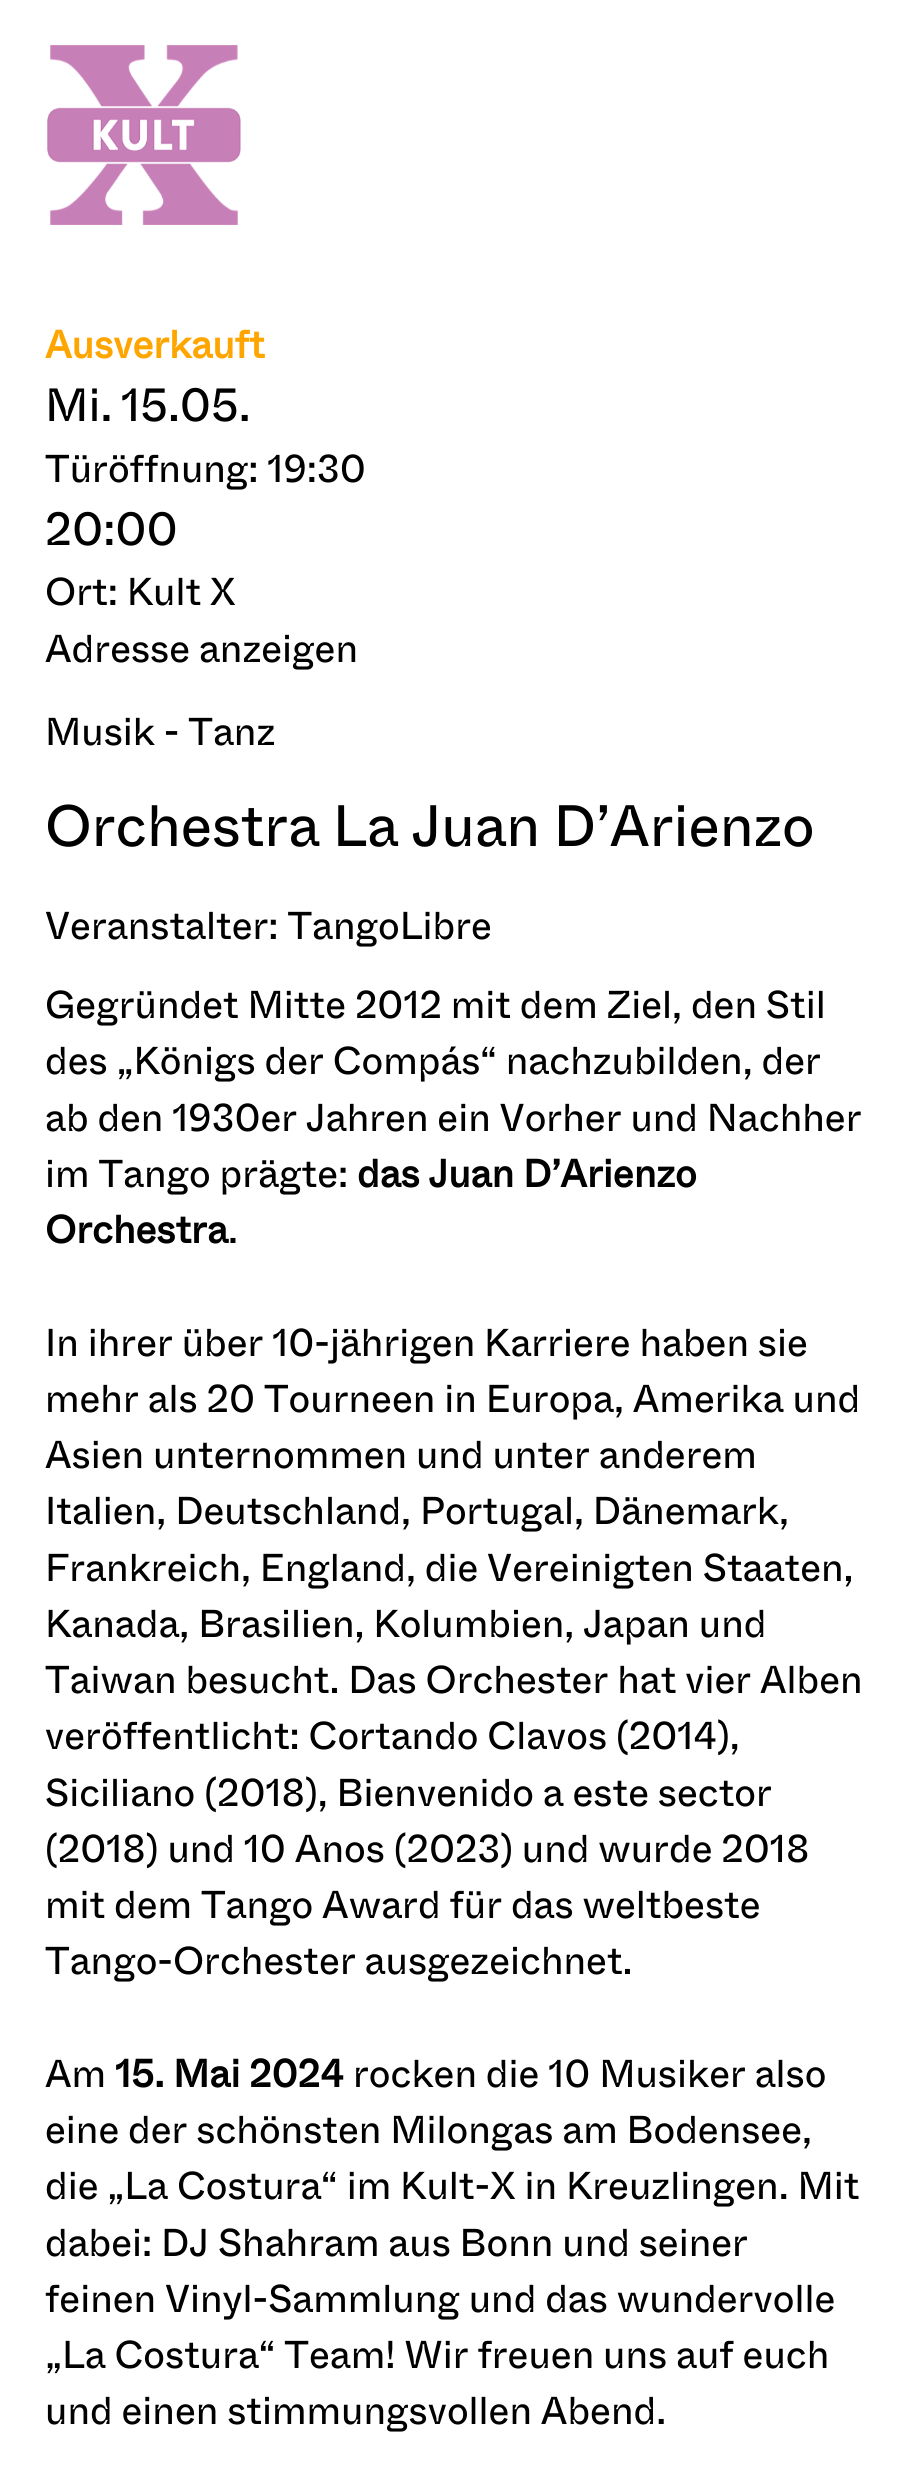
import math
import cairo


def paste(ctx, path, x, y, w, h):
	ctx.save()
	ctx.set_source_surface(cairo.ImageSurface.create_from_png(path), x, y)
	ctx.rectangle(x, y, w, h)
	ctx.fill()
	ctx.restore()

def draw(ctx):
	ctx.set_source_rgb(1, 1, 1)
	ctx.paint()
	paste(ctx, 'media/1.png', 47, 45, 194, 180)
	ctx.select_font_face('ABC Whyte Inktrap', cairo.FONT_SLANT_NORMAL, cairo.FONT_WEIGHT_BOLD)
	ctx.set_font_size(38.8)
	ctx.set_source_rgb(1, 0.647, 0)
	ctx.move_to(45, 358)
	ctx.show_text('Ausverkauft')
	ctx.select_font_face('ABC Whyte Inktrap')
	ctx.set_font_size(46.5)
	ctx.set_source_rgb(0, 0, 0)
	ctx.move_to(45, 421)
	ctx.show_text('Mi.')
	ctx.move_to(121, 421)
	ctx.show_text('15.05.')
	ctx.set_font_size(38.8)
	ctx.move_to(45, 482)
	ctx.show_text('Türöffnung: 19:30')
	ctx.set_font_size(46.5)
	ctx.move_to(45, 545)
	ctx.show_text('20:00')
	ctx.set_font_size(38.8)
	for x, y, s in [
		(45, 605, 'Ort: Kult X'),
		(45, 662, 'Adresse anzeigen'),
		(45, 745, 'Musik - Tanz'),
	]:
		ctx.move_to(x, y)
		ctx.show_text(s)
	ctx.set_font_size(58.25)
	ctx.move_to(45, 846)
	ctx.show_text('Orchestra La Juan D’Arienzo')
	ctx.set_font_size(38.8)
	for x, y, s in [
		(45, 939, 'Veranstalter: TangoLibre'),
		(45, 1018, 'Gegründet Mitte 2012 mit dem Ziel, den Stil'),
		(45, 1074, 'des „Königs der Compás“ nachzubilden, der'),
		(45, 1131, 'ab den 1930er Jahren ein Vorher und Nachher'),
		(45, 1187, 'im Tango prägte:'),
	]:
		ctx.move_to(x, y)
		ctx.show_text(s)
	ctx.select_font_face('ABC Whyte Inktrap', cairo.FONT_SLANT_NORMAL, cairo.FONT_WEIGHT_BOLD)
	ctx.move_to(357, 1187)
	ctx.show_text('das Juan D’Arienzo')
	ctx.move_to(45, 1243)
	ctx.show_text('Orchestra')
	ctx.select_font_face('ABC Whyte Inktrap')
	for x, y, s in [
		(228, 1243, '.'),
		(45, 1356, 'In ihrer über 10-jährigen Karriere haben sie'),
		(45, 1412, 'mehr als 20 Tourneen in Europa, Amerika und'),
		(45, 1468, 'Asien unternommen und unter anderem'),
		(45, 1524, 'Italien, Deutschland, Portugal, Dänemark,'),
		(45, 1581, 'Frankreich, England, die Vereinigten Staaten,'),
		(45, 1637, 'Kanada, Brasilien, Kolumbien, Japan und'),
		(45, 1693, 'Taiwan besucht. Das Orchester hat vier Alben'),
		(45, 1749, 'veröffentlicht: Cortando Clavos (2014),'),
		(45, 1806, 'Siciliano (2018), Bienvenido a este sector'),
		(45, 1862, '(2018) und 10 Anos (2023) und wurde 2018'),
		(45, 1918, 'mit dem Tango Award für das weltbeste'),
		(45, 1974, 'Tango-Orchester ausgezeichnet.'),
		(45, 2087, 'Am'),
	]:
		ctx.move_to(x, y)
		ctx.show_text(s)
	ctx.select_font_face('ABC Whyte Inktrap', cairo.FONT_SLANT_NORMAL, cairo.FONT_WEIGHT_BOLD)
	ctx.move_to(115, 2087)
	ctx.show_text('15. Mai 2024')
	ctx.select_font_face('ABC Whyte Inktrap')
	for x, y, s in [
		(353, 2087, 'rocken die 10 Musiker also'),
		(45, 2143, 'eine der schönsten Milongas am Bodensee,'),
		(45, 2199, 'die „La Costura“ im Kult-X in Kreuzlingen. Mit'),
		(45, 2256, 'dabei: DJ Shahram aus Bonn und seiner'),
		(45, 2312, 'feinen Vinyl-Sammlung und das wundervolle'),
		(45, 2368, '„La Costura“ Team! Wir freuen uns auf euch'),
		(45, 2424, 'und einen stimmungsvollen Abend.'),
	]:
		ctx.move_to(x, y)
		ctx.show_text(s)


surface = cairo.ImageSurface(cairo.FORMAT_RGB24, 909, 2477)
ctx = cairo.Context(surface)
options = cairo.FontOptions()
options.set_hint_metrics(cairo.HINT_METRICS_OFF)
options.set_hint_style(cairo.HINT_STYLE_NONE)
ctx.set_font_options(options)
ctx.set_miter_limit(4)
draw(ctx)
surface.write_to_png('image.png')
